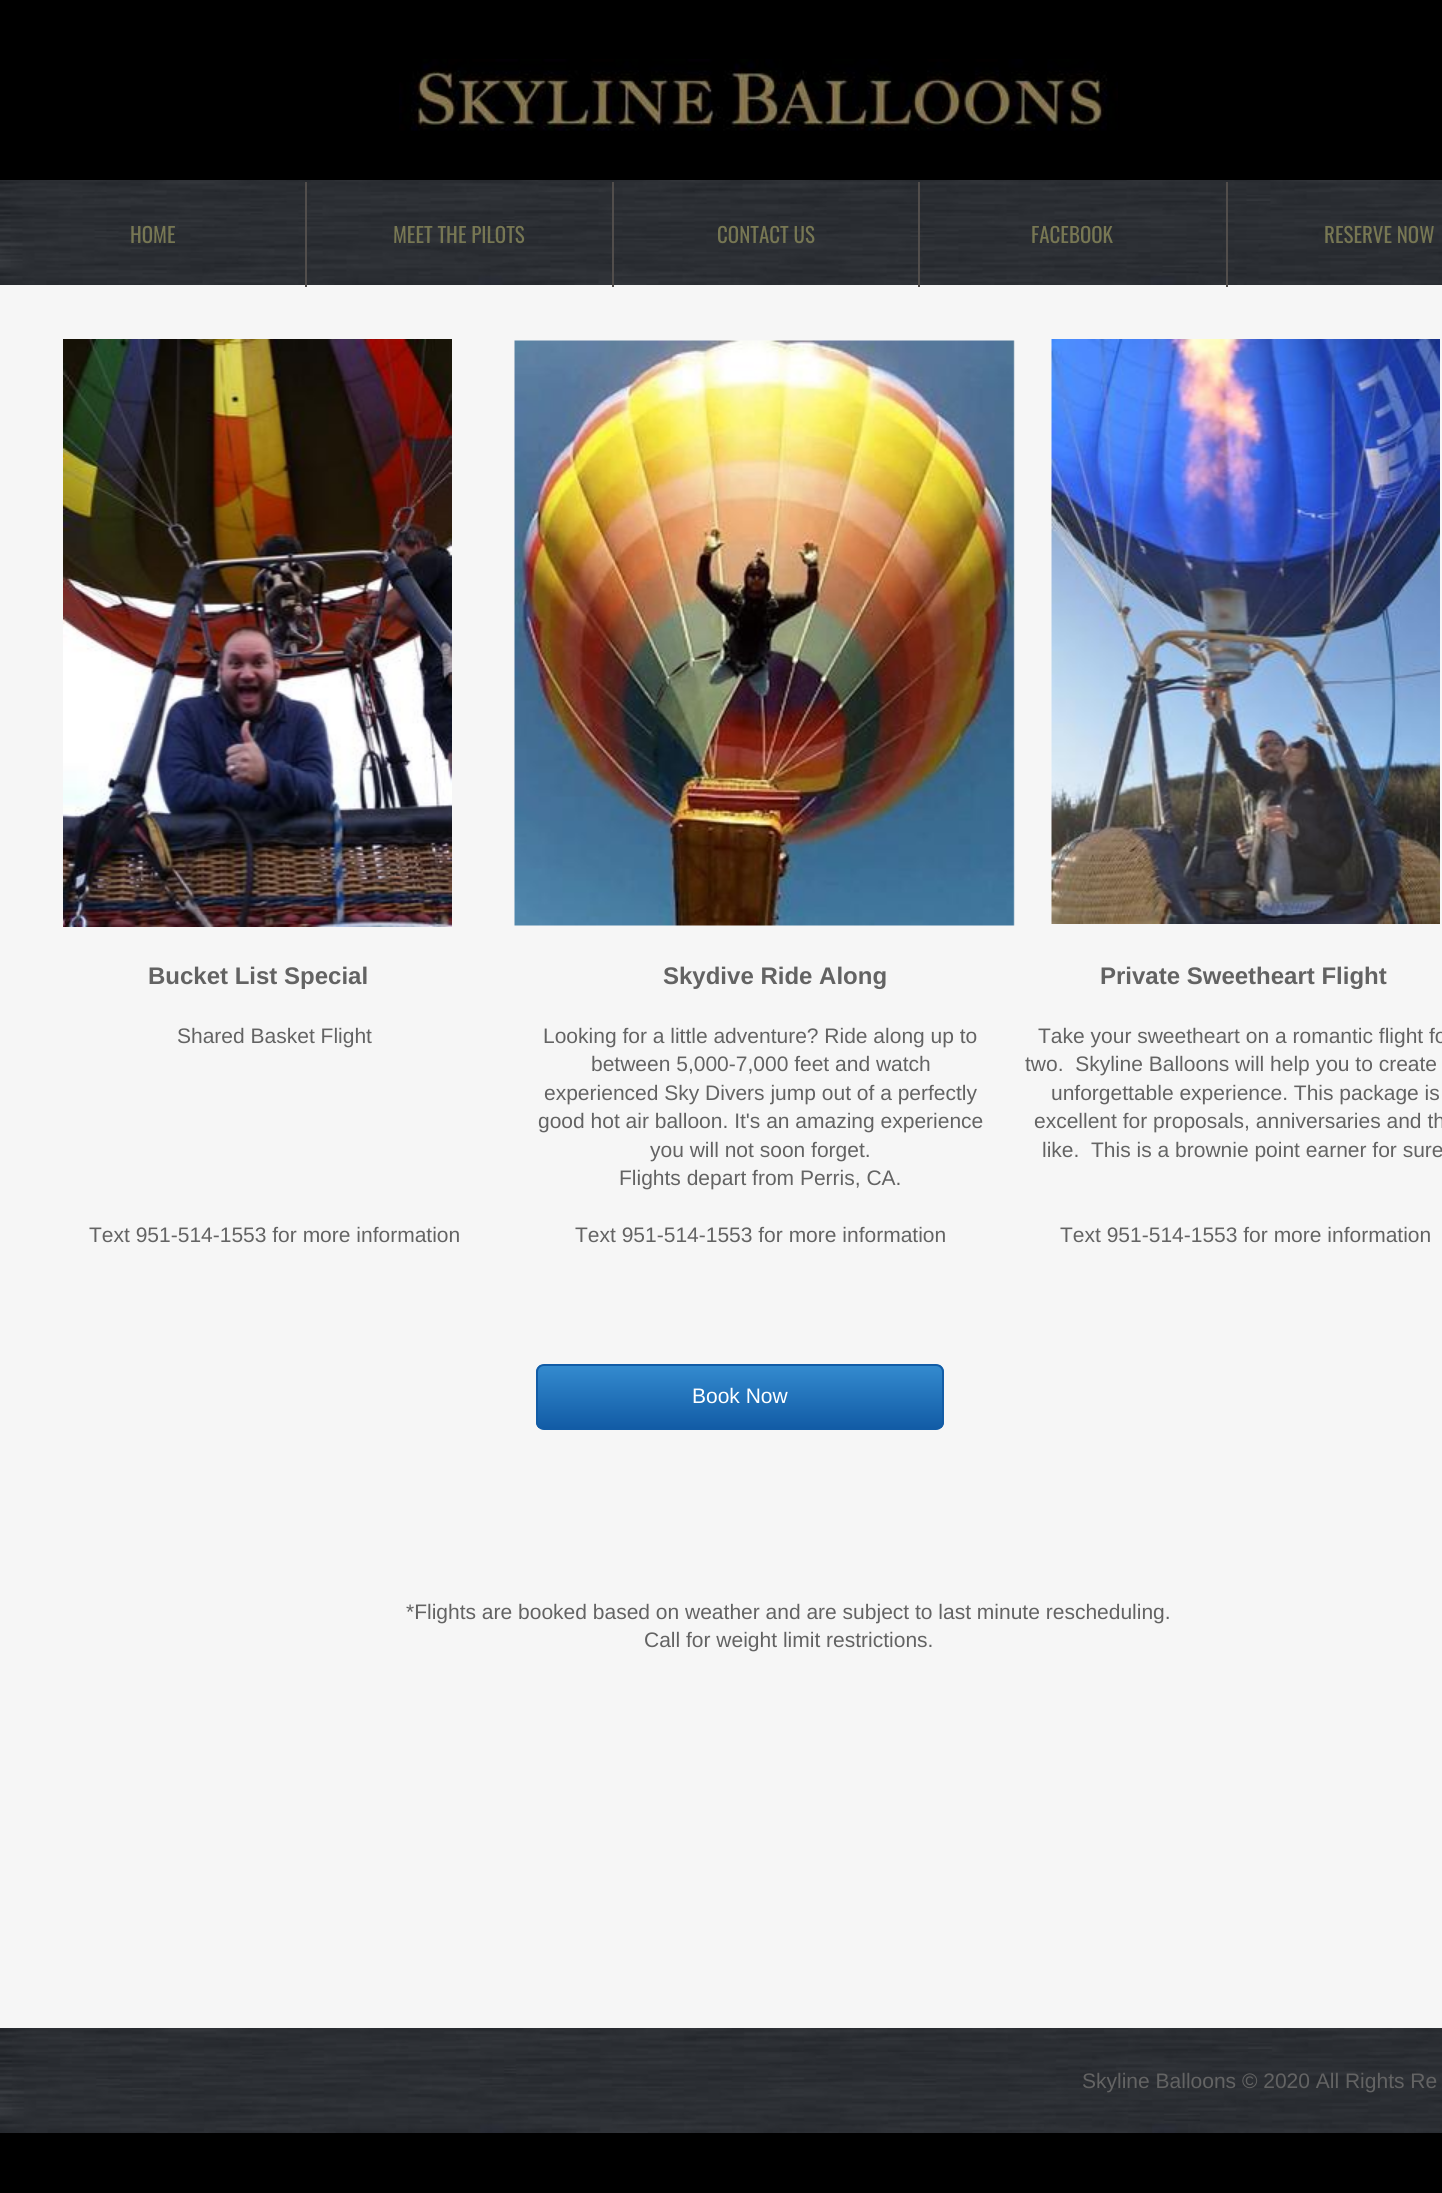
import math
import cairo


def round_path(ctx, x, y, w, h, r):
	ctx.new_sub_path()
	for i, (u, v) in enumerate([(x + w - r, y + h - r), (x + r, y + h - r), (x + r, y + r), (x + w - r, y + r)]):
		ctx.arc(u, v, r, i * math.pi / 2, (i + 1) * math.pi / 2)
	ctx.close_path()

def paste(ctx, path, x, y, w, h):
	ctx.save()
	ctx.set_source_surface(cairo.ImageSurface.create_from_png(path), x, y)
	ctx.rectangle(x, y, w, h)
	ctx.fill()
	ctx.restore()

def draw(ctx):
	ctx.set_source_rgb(0, 0, 0)
	ctx.paint()
	ctx.set_source_rgb(0.961, 0.961, 0.961)
	ctx.rectangle(0, 285, 1442, 1743)
	ctx.fill()
	paste(ctx, 'media/1.png', 399, 59, 719, 72)
	paste(ctx, 'media/2.png', 0, 180, 1442, 105)
	ctx.set_source_rgb(0.322, 0.306, 0.298)
	ctx.rectangle(305, 182, 2, 105)
	ctx.fill()
	ctx.select_font_face('Oswald')
	ctx.set_font_size(21)
	ctx.set_source_rgb(0.467, 0.467, 0.325)
	ctx.move_to(130, 243)
	ctx.show_text('HOME')
	ctx.set_source_rgb(0.322, 0.306, 0.298)
	ctx.rectangle(612, 182, 2, 105)
	ctx.fill()
	ctx.set_source_rgb(0.467, 0.467, 0.325)
	ctx.move_to(393, 243)
	ctx.show_text('MEET THE PILOTS')
	ctx.set_source_rgb(0.322, 0.306, 0.298)
	ctx.rectangle(918, 182, 2, 105)
	ctx.fill()
	ctx.set_source_rgb(0.467, 0.467, 0.325)
	ctx.move_to(717, 243)
	ctx.show_text('CONTACT US')
	ctx.set_source_rgb(0.322, 0.306, 0.298)
	ctx.rectangle(1226, 182, 2, 105)
	ctx.fill()
	ctx.set_source_rgb(0.467, 0.467, 0.325)
	ctx.move_to(1031, 243)
	ctx.show_text('FACEBOOK')
	ctx.move_to(1324, 243)
	ctx.show_text('RESERVE NOW')
	paste(ctx, 'media/3.png', 63, 339, 389, 588)
	paste(ctx, 'media/4.png', 514, 340, 501, 586)
	paste(ctx, 'media/5.png', 1051, 339, 389, 585)
	ctx.select_font_face('Liberation Sans', cairo.FONT_SLANT_NORMAL, cairo.FONT_WEIGHT_BOLD)
	ctx.set_font_size(24)
	ctx.set_source_rgb(0.388, 0.388, 0.388)
	for x, y, s in [
		(148, 984, 'Bucket List Special'),
		(663, 984, 'Skydive Ride Along'),
		(1100, 984, 'Private Sweetheart Flight'),
	]:
		ctx.move_to(x, y)
		ctx.show_text(s)
	ctx.select_font_face('Liberation Sans')
	ctx.set_font_size(21)
	for x, y, s in [
		(177, 1043, 'Shared Basket Flight'),
		(89, 1242, 'Text 951-514-1553 for more information'),
		(543, 1043, 'Looking for a little adventure? Ride along up to'),
		(591, 1071, 'between 5,000-7,000 feet and watch'),
		(544, 1100, 'experienced Sky Divers jump out of a perfectly'),
		(538, 1128, 'good hot air balloon. It\'s an amazing experience'),
		(650, 1157, 'you will not soon forget.'),
		(619, 1185, 'Flights depart from Perris, CA.'),
		(575, 1242, 'Text 951-514-1553 for more information'),
		(1038, 1043, 'Take your sweetheart on a romantic flight fo'),
		(1025, 1071, 'two.  Skyline Balloons will help you to create'),
		(1051, 1100, 'unforgettable experience. This package is'),
		(1034, 1128, 'excellent for proposals, anniversaries and th'),
		(1042, 1157, 'like.  This is a brownie point earner for sure'),
		(1060, 1242, 'Text 951-514-1553 for more information'),
	]:
		ctx.move_to(x, y)
		ctx.show_text(s)
	ctx.save()
	round_path(ctx, 536, 1364, 408, 66, 8)
	ctx.clip()
	gradient = cairo.LinearGradient(740, 1365, 740, 1428)
	gradient.add_color_stop_rgba(0, 0.204, 0.545, 0.812, 1)
	gradient.add_color_stop_rgba(1, 0.071, 0.361, 0.651, 1)
	ctx.set_source(gradient)
	ctx.rectangle(536, 1365, 408, 63)
	ctx.fill()
	ctx.restore()
	round_path(ctx, 537, 1365, 406, 64, 7)
	ctx.set_source_rgb(0.071, 0.361, 0.651)
	ctx.stroke()
	ctx.set_source_rgb(1, 1, 1)
	ctx.move_to(692, 1403)
	ctx.show_text('Book Now')
	ctx.set_source_rgb(0.388, 0.388, 0.388)
	ctx.move_to(406, 1619)
	ctx.show_text('*Flights are booked based on weather and are subject to last minute rescheduling.')
	ctx.move_to(644, 1647)
	ctx.show_text('Call for weight limit restrictions.')
	paste(ctx, 'media/6.png', 0, 2028, 1442, 105)
	ctx.move_to(1082, 2088)
	ctx.show_text('Skyline Balloons © 2020 All Rights Re')


surface = cairo.ImageSurface(cairo.FORMAT_RGB24, 1442, 2193)
ctx = cairo.Context(surface)
options = cairo.FontOptions()
options.set_hint_metrics(cairo.HINT_METRICS_OFF)
options.set_hint_style(cairo.HINT_STYLE_NONE)
ctx.set_font_options(options)
ctx.set_miter_limit(4)
draw(ctx)
surface.write_to_png('image.png')
